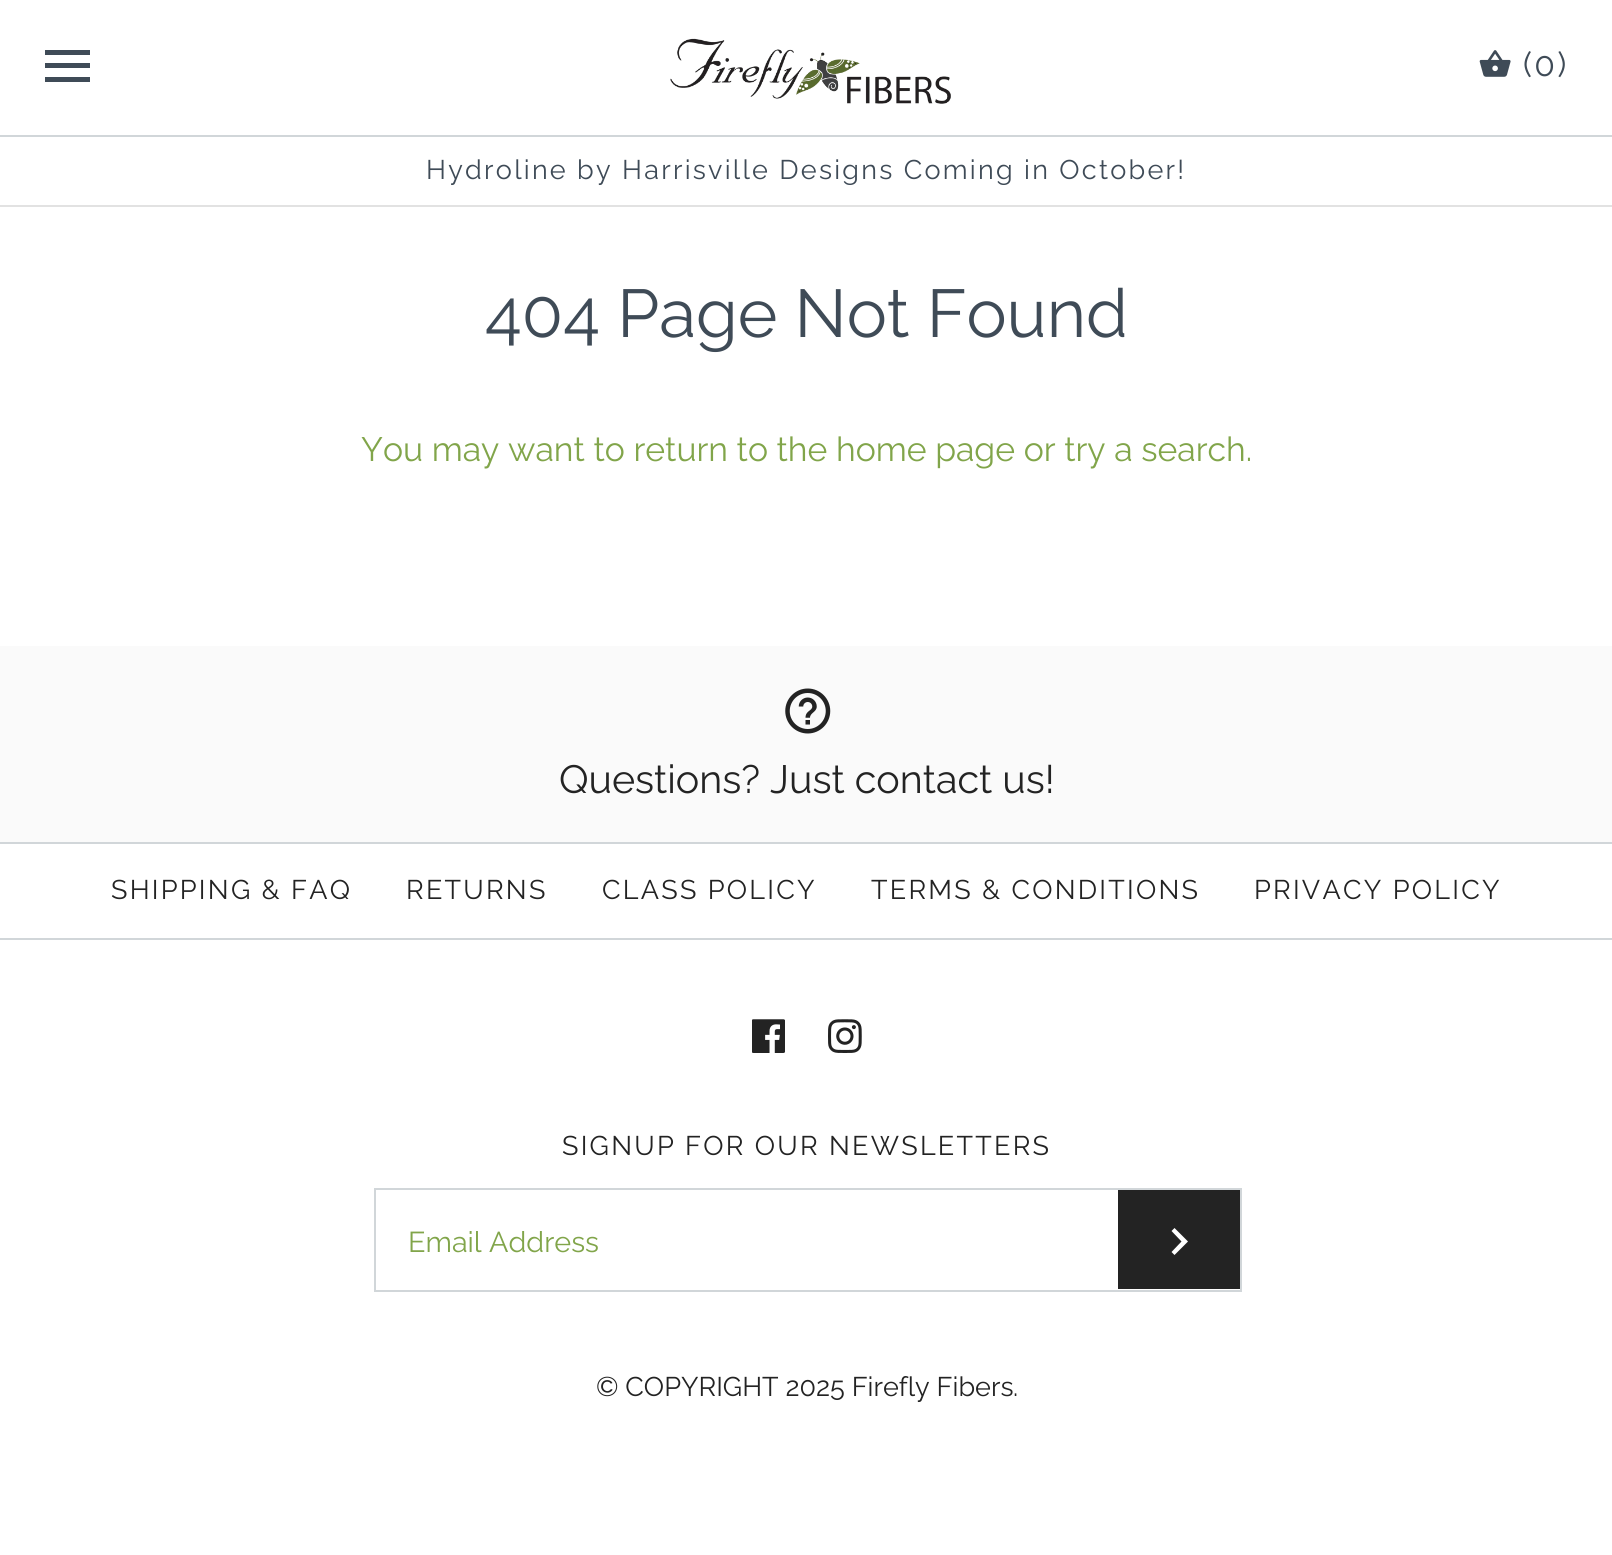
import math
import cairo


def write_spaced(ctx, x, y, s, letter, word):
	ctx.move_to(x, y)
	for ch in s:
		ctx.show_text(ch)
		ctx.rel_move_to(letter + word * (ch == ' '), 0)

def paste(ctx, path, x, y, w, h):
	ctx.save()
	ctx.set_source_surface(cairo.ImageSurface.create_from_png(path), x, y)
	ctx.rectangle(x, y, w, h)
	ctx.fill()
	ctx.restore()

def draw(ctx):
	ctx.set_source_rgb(1, 1, 1)
	ctx.paint()
	ctx.set_source_rgb(0.82, 0.839, 0.851)
	ctx.rectangle(0, 135, 1612, 2)
	ctx.fill()
	ctx.set_source_rgb(0.247, 0.294, 0.341)
	ctx.rectangle(45, 50, 45, 5)
	ctx.rectangle(45, 63, 45, 5)
	ctx.rectangle(45, 77, 45, 5)
	ctx.fill()
	paste(ctx, 'media/1.png', 670, 38, 281, 66)
	paste(ctx, 'media/2.png', 1479, 50, 32, 27)
	ctx.select_font_face('Raleway')
	ctx.set_font_size(33.75)
	write_spaced(ctx, 1523, 76, '(0)', 2.25, 0)
	ctx.set_source_rgb(0.886, 0.886, 0.886)
	ctx.rectangle(0, 205, 1612, 2)
	ctx.fill()
	ctx.set_font_size(27)
	ctx.set_source_rgb(0.247, 0.294, 0.341)
	write_spaced(ctx, 426, 179, 'Hydroline by Harrisville Designs Coming in October!', 2.25, 0)
	ctx.set_font_size(67.5)
	ctx.move_to(485, 337)
	ctx.show_text('404 Page Not Found')
	ctx.set_font_size(33.75)
	ctx.set_source_rgb(0.506, 0.647, 0.29)
	ctx.move_to(361, 461)
	ctx.show_text('You may want to return to the home page or try a search.')
	ctx.set_source_rgb(0.98, 0.98, 0.98)
	ctx.rectangle(0, 646, 1612, 196)
	ctx.fill()
	paste(ctx, 'media/3.png', 785, 688, 46, 46)
	ctx.set_font_size(39.4)
	ctx.set_source_rgb(0.137, 0.137, 0.137)
	ctx.move_to(559, 793)
	ctx.show_text('Questions? Just contact us!')
	ctx.set_source_rgb(0.82, 0.839, 0.851)
	ctx.rectangle(0, 842, 1612, 2)
	ctx.fill()
	ctx.rectangle(0, 938, 1612, 2)
	ctx.fill()
	ctx.set_font_size(27)
	ctx.set_source_rgb(0.137, 0.137, 0.137)
	for x, y, s in [
		(111, 899, 'SHIPPING & FAQ'),
		(406, 899, 'RETURNS'),
		(602, 899, 'CLASS POLICY'),
		(871, 899, 'TERMS & CONDITIONS'),
		(1254, 899, 'PRIVACY POLICY'),
	]:
		write_spaced(ctx, x, y, s, 2.25, 0)
	paste(ctx, 'media/4.png', 752, 1019, 33, 34)
	paste(ctx, 'media/5.png', 828, 1019, 34, 34)
	write_spaced(ctx, 562, 1155, 'SIGNUP FOR OUR NEWSLETTERS', 2.25, 0)
	ctx.rectangle(375, 1189, 866, 102)
	ctx.set_source_rgb(0.82, 0.839, 0.851)
	ctx.stroke()
	ctx.set_font_size(28.75)
	ctx.set_source_rgb(0.506, 0.647, 0.29)
	ctx.move_to(408, 1252)
	ctx.show_text('Email Address')
	ctx.set_source_rgb(0.137, 0.137, 0.137)
	ctx.rectangle(1118, 1190, 122, 99)
	ctx.fill()
	ctx.set_source_rgb(1, 1, 1)
	ctx.new_path()
	ctx.move_to(1171.5, 1252)
	ctx.line_to(1181.5, 1241.5)
	ctx.line_to(1171.5, 1231)
	ctx.line_to(1174.5, 1228)
	ctx.line_to(1188, 1241.5)
	ctx.line_to(1174.5, 1255)
	ctx.close_path()
	ctx.fill()
	ctx.set_font_size(27)
	ctx.set_source_rgb(0.137, 0.137, 0.137)
	ctx.move_to(596, 1396)
	ctx.show_text('© COPYRIGHT 2025 Firefly Fibers')
	ctx.move_to(1013, 1396)
	ctx.show_text('.')


surface = cairo.ImageSurface(cairo.FORMAT_RGB24, 1612, 1555)
ctx = cairo.Context(surface)
options = cairo.FontOptions()
options.set_hint_metrics(cairo.HINT_METRICS_OFF)
options.set_hint_style(cairo.HINT_STYLE_NONE)
ctx.set_font_options(options)
ctx.set_miter_limit(4)
draw(ctx)
surface.write_to_png('image.png')
